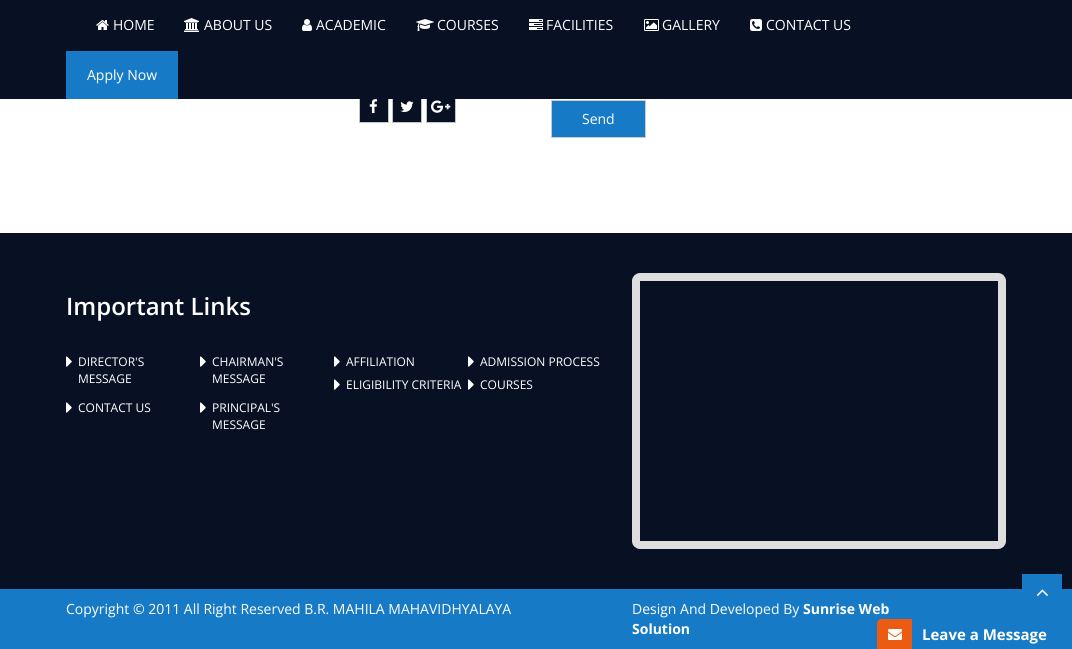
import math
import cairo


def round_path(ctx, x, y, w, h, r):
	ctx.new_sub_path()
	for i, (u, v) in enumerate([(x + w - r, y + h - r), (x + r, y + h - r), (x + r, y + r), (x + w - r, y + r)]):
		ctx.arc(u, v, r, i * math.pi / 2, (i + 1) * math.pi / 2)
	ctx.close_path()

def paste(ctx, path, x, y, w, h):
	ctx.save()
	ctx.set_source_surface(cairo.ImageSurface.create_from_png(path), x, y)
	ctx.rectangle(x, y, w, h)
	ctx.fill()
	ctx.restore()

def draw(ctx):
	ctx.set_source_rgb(1, 1, 1)
	ctx.paint()
	ctx.set_source_rgb(0.035, 0.067, 0.141)
	ctx.rectangle(360, 99, 28, 23)
	ctx.fill()
	ctx.rectangle(359.5, 93.5, 29, 29)
	ctx.set_source_rgb(0.773, 0.773, 0.773)
	ctx.set_line_width(1)
	ctx.stroke()
	ctx.set_source_rgb(0.035, 0.067, 0.141)
	ctx.rectangle(393, 99, 28, 23)
	ctx.fill()
	ctx.rectangle(392.5, 93.5, 29, 29)
	ctx.set_source_rgb(0.773, 0.773, 0.773)
	ctx.stroke()
	ctx.set_source_rgb(0.035, 0.067, 0.141)
	ctx.rectangle(427, 99, 28, 23)
	ctx.fill()
	ctx.rectangle(426.5, 93.5, 29, 29)
	ctx.set_source_rgb(0.773, 0.773, 0.773)
	ctx.stroke()
	ctx.set_source_rgb(0.035, 0.067, 0.141)
	ctx.rectangle(0, 0, 1072, 99)
	ctx.fill()
	paste(ctx, 'media/1.png', 96, 20, 13, 10)
	ctx.select_font_face('Open Sans')
	ctx.set_font_size(14)
	ctx.set_source_rgb(1, 1, 1)
	ctx.move_to(113, 30)
	ctx.show_text('HOME')
	paste(ctx, 'media/2.png', 184, 18, 15, 14)
	ctx.move_to(204, 30)
	ctx.show_text('ABOUT US')
	paste(ctx, 'media/3.png', 302, 19, 10, 12)
	ctx.move_to(316, 30)
	ctx.show_text('ACADEMIC')
	paste(ctx, 'media/4.png', 416, 19, 18, 12)
	ctx.move_to(437, 30)
	ctx.show_text('COURSES')
	paste(ctx, 'media/5.png', 529, 19, 14, 11)
	ctx.move_to(546, 30)
	ctx.show_text('FACILITIES')
	paste(ctx, 'media/6.png', 644, 19, 15, 12)
	ctx.move_to(662, 30)
	ctx.show_text('GALLERY')
	paste(ctx, 'media/7.png', 750, 19, 12, 12)
	ctx.move_to(766, 30)
	ctx.show_text('CONTACT US')
	ctx.set_source_rgb(0.086, 0.478, 0.776)
	ctx.rectangle(66, 51, 112, 48)
	ctx.fill()
	ctx.set_source_rgb(1, 1, 1)
	ctx.move_to(87, 80)
	ctx.show_text('Apply Now')
	paste(ctx, 'media/8.png', 369, 99, 9, 15)
	paste(ctx, 'media/9.png', 400, 101, 14, 11)
	paste(ctx, 'media/10.png', 431, 100, 20, 13)
	ctx.set_source_rgb(0.086, 0.478, 0.776)
	ctx.rectangle(551.5, 100.5, 94, 37)
	ctx.fill_preserve()
	ctx.set_source_rgb(0.8, 0.8, 0.8)
	ctx.stroke()
	ctx.set_source_rgb(1, 1, 1)
	ctx.move_to(582, 124)
	ctx.show_text('Send')
	ctx.set_source_rgb(0.035, 0.067, 0.141)
	ctx.rectangle(0, 233, 1072, 356)
	ctx.fill()
	ctx.select_font_face('Open Sans SemiBold')
	ctx.set_font_size(24)
	ctx.set_source_rgb(1, 1, 1)
	ctx.move_to(66, 315)
	ctx.show_text('Important Links')
	paste(ctx, 'media/11.png', 66, 356, 6, 11)
	ctx.select_font_face('Open Sans')
	ctx.set_font_size(12)
	ctx.move_to(78, 366)
	ctx.show_text('DIRECTOR\'S')
	ctx.move_to(78, 383)
	ctx.show_text('MESSAGE')
	paste(ctx, 'media/11.png', 200, 356, 6, 11)
	ctx.move_to(212, 366)
	ctx.show_text('CHAIRMAN\'S')
	ctx.move_to(212, 383)
	ctx.show_text('MESSAGE')
	paste(ctx, 'media/11.png', 334, 356, 6, 11)
	ctx.move_to(346, 366)
	ctx.show_text('AFFILIATION')
	paste(ctx, 'media/11.png', 468, 356, 6, 11)
	ctx.move_to(480, 366)
	ctx.show_text('ADMISSION PROCESS')
	paste(ctx, 'media/11.png', 334, 379, 6, 11)
	ctx.move_to(346, 389)
	ctx.show_text('ELIGIBILITY CRITERIA')
	paste(ctx, 'media/11.png', 468, 379, 6, 11)
	ctx.move_to(480, 389)
	ctx.show_text('COURSES')
	paste(ctx, 'media/11.png', 66, 402, 6, 11)
	ctx.move_to(78, 412)
	ctx.show_text('CONTACT US')
	paste(ctx, 'media/11.png', 200, 402, 6, 11)
	ctx.move_to(212, 412)
	ctx.show_text('PRINCIPAL\'S')
	ctx.move_to(212, 429)
	ctx.show_text('MESSAGE')
	round_path(ctx, 636, 277, 366, 268, 4)
	ctx.set_source_rgb(0.871, 0.871, 0.871)
	ctx.set_line_width(8)
	ctx.stroke()
	ctx.set_source_rgb(0.086, 0.478, 0.776)
	ctx.rectangle(1022, 574, 40, 15)
	ctx.fill()
	ctx.rectangle(0, 589, 1072, 60)
	ctx.fill()
	paste(ctx, 'media/12.png', 1036, 589, 12, 7)
	ctx.set_font_size(14)
	ctx.set_source_rgb(1, 1, 1)
	ctx.move_to(66, 614)
	ctx.show_text('Copyright © 2011 All Right Reserved B.R. MAHILA MAHAVIDHYALAYA')
	ctx.move_to(632, 614)
	ctx.show_text('Design And Developed By')
	ctx.select_font_face('Open Sans', cairo.FONT_SLANT_NORMAL, cairo.FONT_WEIGHT_BOLD)
	ctx.move_to(803, 614)
	ctx.show_text('Sunrise Web')
	ctx.move_to(632, 634)
	ctx.show_text('Solution')
	ctx.set_source_rgb(0.925, 0.357, 0.071)
	ctx.new_path()
	ctx.move_to(882, 619)
	ctx.line_to(912, 619)
	ctx.line_to(912, 649)
	ctx.line_to(877, 649)
	ctx.line_to(877, 624)
	ctx.curve_to(877, 621, 879, 619, 882, 619)
	ctx.close_path()
	ctx.fill()
	paste(ctx, 'media/13.png', 888, 629, 14, 11)
	ctx.set_font_size(15)
	ctx.set_source_rgb(1, 1, 1)
	ctx.move_to(922, 640)
	ctx.show_text('Leave a Message')


surface = cairo.ImageSurface(cairo.FORMAT_RGB24, 1072, 649)
ctx = cairo.Context(surface)
options = cairo.FontOptions()
options.set_hint_metrics(cairo.HINT_METRICS_OFF)
options.set_hint_style(cairo.HINT_STYLE_NONE)
ctx.set_font_options(options)
ctx.set_miter_limit(4)
draw(ctx)
surface.write_to_png('image.png')
